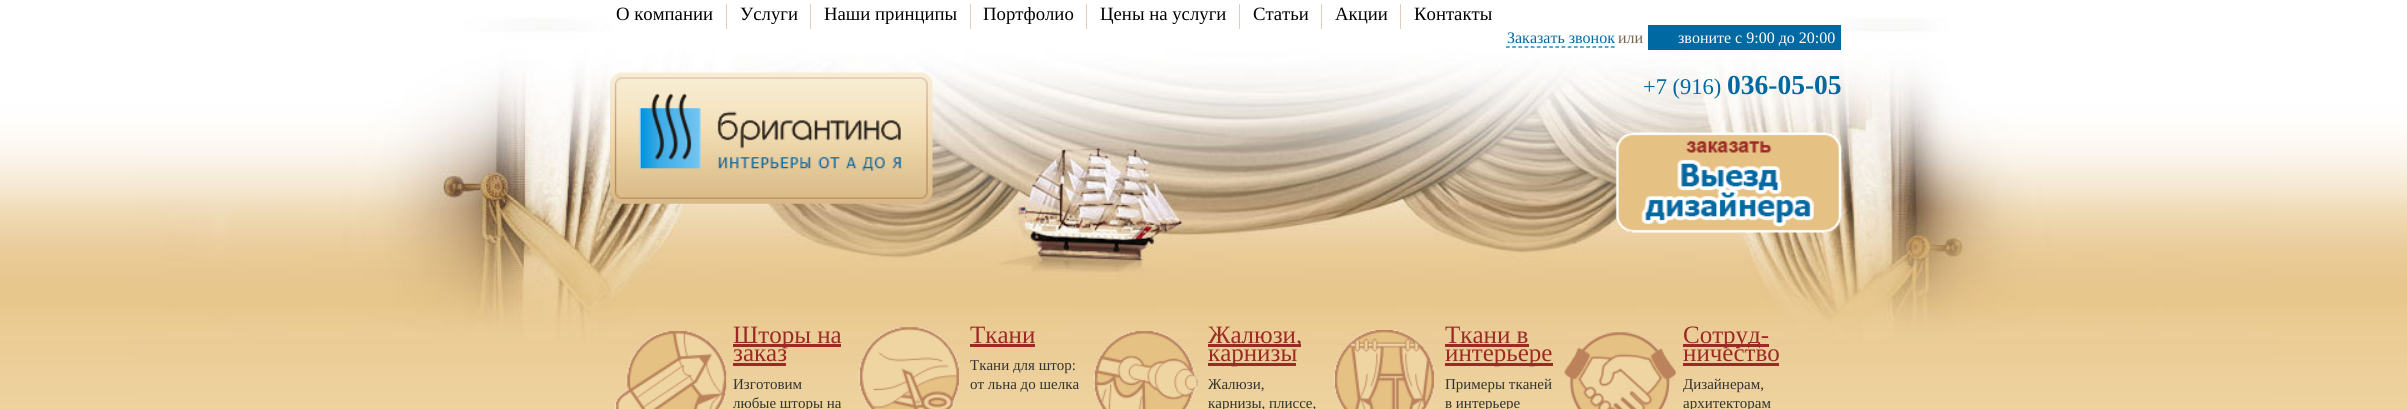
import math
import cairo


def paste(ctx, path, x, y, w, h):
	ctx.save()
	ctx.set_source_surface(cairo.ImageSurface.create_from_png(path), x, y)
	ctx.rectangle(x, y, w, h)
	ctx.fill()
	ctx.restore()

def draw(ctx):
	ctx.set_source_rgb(1, 1, 1)
	ctx.paint()
	paste(ctx, 'media/1.png', 0, 0, 2407, 409)
	ctx.select_font_face('Liberation Serif')
	ctx.set_font_size(18.75)
	ctx.set_source_rgb(0, 0, 0)
	ctx.move_to(616, 20)
	ctx.show_text('О компании')
	ctx.set_source_rgb(0.894, 0.804, 0.741)
	ctx.rectangle(726, 4, 1, 25)
	ctx.fill()
	ctx.set_source_rgb(0, 0, 0)
	ctx.move_to(740, 20)
	ctx.show_text('Услуги')
	ctx.set_source_rgb(0.894, 0.804, 0.741)
	ctx.rectangle(810, 4, 1, 25)
	ctx.fill()
	ctx.set_source_rgb(0, 0, 0)
	ctx.move_to(824, 20)
	ctx.show_text('Наши принципы')
	ctx.set_source_rgb(0.894, 0.804, 0.741)
	ctx.rectangle(970, 4, 1, 25)
	ctx.fill()
	ctx.set_source_rgb(0, 0, 0)
	ctx.move_to(983, 20)
	ctx.show_text('Портфолио')
	ctx.set_source_rgb(0.894, 0.804, 0.741)
	ctx.rectangle(1086, 4, 1, 25)
	ctx.fill()
	ctx.set_source_rgb(0, 0, 0)
	ctx.move_to(1100, 20)
	ctx.show_text('Цены на услуги')
	ctx.set_source_rgb(0.894, 0.804, 0.741)
	ctx.rectangle(1239, 4, 1, 25)
	ctx.fill()
	ctx.set_source_rgb(0, 0, 0)
	ctx.move_to(1253, 20)
	ctx.show_text('Статьи')
	ctx.set_source_rgb(0.894, 0.804, 0.741)
	ctx.rectangle(1321, 4, 1, 25)
	ctx.fill()
	ctx.set_source_rgb(0, 0, 0)
	ctx.move_to(1335, 20)
	ctx.show_text('Акции')
	ctx.set_source_rgb(0.894, 0.804, 0.741)
	ctx.rectangle(1400, 4, 1, 25)
	ctx.fill()
	ctx.set_source_rgb(0, 0, 0)
	ctx.move_to(1414, 20)
	ctx.show_text('Контакты')
	paste(ctx, 'media/2.png', 610, 72, 323, 132)
	ctx.set_font_size(16)
	ctx.set_source_rgb(0, 0.412, 0.631)
	ctx.move_to(1507, 43)
	ctx.show_text('Заказать звонок')
	ctx.new_path()
	ctx.move_to(1506, 47)
	ctx.line_to(1615, 47)
	ctx.set_line_width(1.2)
	ctx.set_dash([3.75, 2.42])
	ctx.stroke()
	ctx.set_source_rgb(0.455, 0.392, 0.314)
	ctx.move_to(1618, 43)
	ctx.show_text('или')
	ctx.set_source_rgb(0, 0.412, 0.631)
	ctx.rectangle(1648, 25, 193, 25)
	ctx.fill()
	ctx.set_source_rgb(1, 1, 1)
	ctx.move_to(1678, 43)
	ctx.show_text('звоните с 9:00 до 20:00')
	ctx.set_font_size(22.5)
	ctx.set_source_rgb(0, 0.412, 0.631)
	ctx.move_to(1643, 94)
	ctx.show_text('+7 (916)')
	ctx.select_font_face('Liberation Serif', cairo.FONT_SLANT_NORMAL, cairo.FONT_WEIGHT_BOLD)
	ctx.set_font_size(27.5)
	ctx.move_to(1727, 94)
	ctx.show_text('036-05-05')
	paste(ctx, 'media/3.png', 1615, 132, 227, 101)
	paste(ctx, 'media/4.png', 615, 331, 112, 78)
	paste(ctx, 'media/5.png', 615, 331, 112, 78)
	ctx.set_source_rgb(0.616, 0.161, 0.153)
	ctx.rectangle(733, 344, 108, 3)
	ctx.fill()
	ctx.select_font_face('Liberation Serif')
	ctx.set_font_size(25)
	ctx.move_to(733, 343)
	ctx.show_text('Шторы на')
	ctx.move_to(733, 361)
	ctx.show_text('заказ')
	ctx.rectangle(733, 363, 53, 3)
	ctx.fill()
	ctx.set_font_size(15)
	ctx.set_source_rgb(0.2, 0.2, 0.2)
	ctx.move_to(733, 389)
	ctx.show_text('Изготовим')
	ctx.move_to(733, 408)
	ctx.show_text('любые шторы на')
	paste(ctx, 'media/6.png', 858, 327, 101, 82)
	paste(ctx, 'media/7.png', 858, 327, 101, 82)
	ctx.set_font_size(25)
	ctx.set_source_rgb(0.616, 0.161, 0.153)
	ctx.move_to(970, 343)
	ctx.show_text('Ткани')
	ctx.rectangle(970, 344, 65, 3)
	ctx.fill()
	ctx.set_font_size(15)
	ctx.set_source_rgb(0.2, 0.2, 0.2)
	ctx.move_to(970, 370)
	ctx.show_text('Ткани для штор:')
	ctx.move_to(970, 389)
	ctx.show_text('от льна до шелка')
	paste(ctx, 'media/8.png', 1093, 331, 105, 78)
	paste(ctx, 'media/9.png', 1093, 331, 105, 78)
	ctx.set_source_rgb(0.616, 0.161, 0.153)
	ctx.rectangle(1208, 344, 93, 3)
	ctx.fill()
	ctx.set_font_size(25)
	ctx.move_to(1208, 343)
	ctx.show_text('Жалюзи,')
	ctx.rectangle(1208, 363, 88, 3)
	ctx.fill()
	ctx.move_to(1208, 361)
	ctx.show_text('карнизы')
	ctx.set_font_size(15)
	ctx.set_source_rgb(0.2, 0.2, 0.2)
	ctx.move_to(1208, 389)
	ctx.show_text('Жалюзи,')
	ctx.move_to(1208, 408)
	ctx.show_text('карнизы, плиссе,')
	paste(ctx, 'media/10.png', 1333, 330, 101, 79)
	paste(ctx, 'media/11.png', 1333, 330, 101, 79)
	ctx.set_font_size(25)
	ctx.set_source_rgb(0.616, 0.161, 0.153)
	ctx.move_to(1445, 343)
	ctx.show_text('Ткани в')
	ctx.rectangle(1445, 344, 84, 3)
	ctx.fill()
	ctx.rectangle(1445, 363, 108, 3)
	ctx.fill()
	ctx.move_to(1445, 361)
	ctx.show_text('интерьере')
	ctx.set_font_size(15)
	ctx.set_source_rgb(0.2, 0.2, 0.2)
	ctx.move_to(1445, 389)
	ctx.show_text('Примеры тканей')
	ctx.move_to(1445, 408)
	ctx.show_text('в интерьере')
	paste(ctx, 'media/12.png', 1564, 332, 112, 77)
	paste(ctx, 'media/13.png', 1564, 332, 112, 77)
	ctx.set_source_rgb(0.616, 0.161, 0.153)
	ctx.rectangle(1683, 344, 86, 3)
	ctx.fill()
	ctx.set_font_size(25)
	ctx.move_to(1683, 343)
	ctx.show_text('Сотруд-')
	ctx.move_to(1683, 361)
	ctx.show_text('ничество')
	ctx.rectangle(1683, 363, 96, 3)
	ctx.fill()
	ctx.set_font_size(15)
	ctx.set_source_rgb(0.2, 0.2, 0.2)
	ctx.move_to(1683, 389)
	ctx.show_text('Дизайнерам,')
	ctx.move_to(1683, 408)
	ctx.show_text('архитекторам')


surface = cairo.ImageSurface(cairo.FORMAT_RGB24, 2407, 409)
ctx = cairo.Context(surface)
options = cairo.FontOptions()
options.set_hint_metrics(cairo.HINT_METRICS_OFF)
options.set_hint_style(cairo.HINT_STYLE_NONE)
ctx.set_font_options(options)
ctx.set_miter_limit(4)
draw(ctx)
surface.write_to_png('image.png')
